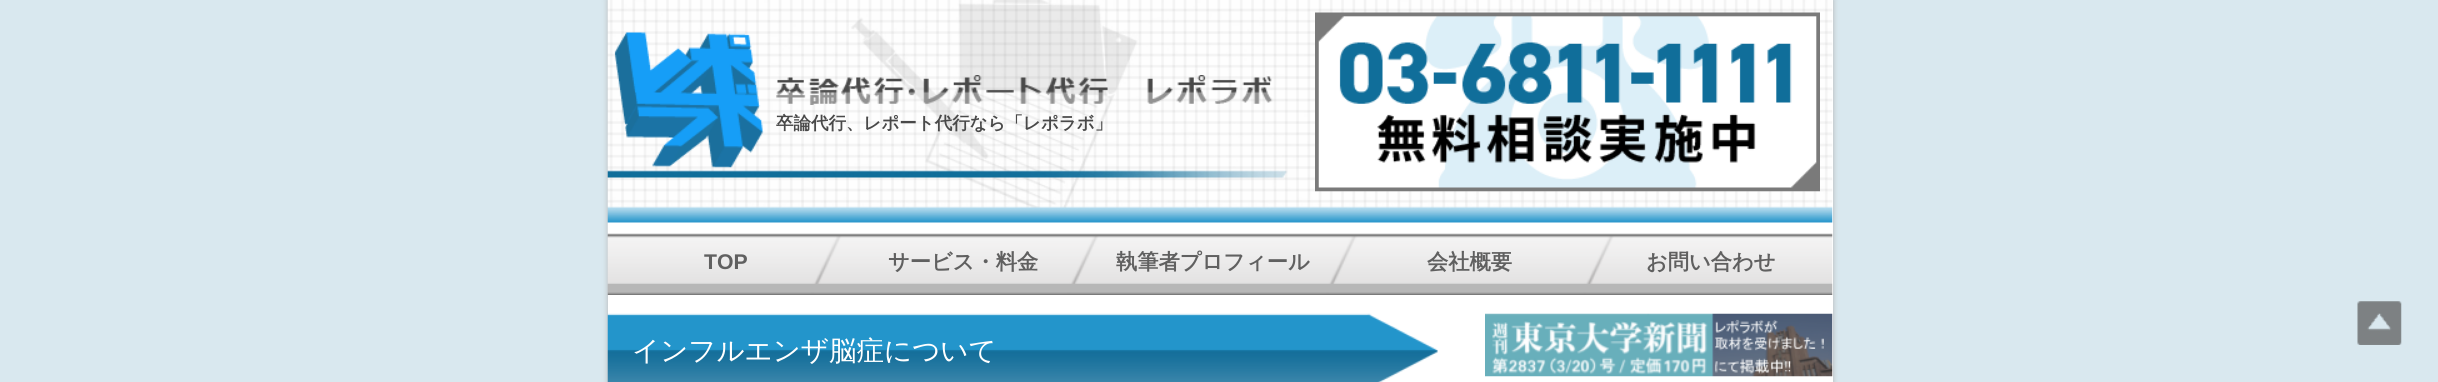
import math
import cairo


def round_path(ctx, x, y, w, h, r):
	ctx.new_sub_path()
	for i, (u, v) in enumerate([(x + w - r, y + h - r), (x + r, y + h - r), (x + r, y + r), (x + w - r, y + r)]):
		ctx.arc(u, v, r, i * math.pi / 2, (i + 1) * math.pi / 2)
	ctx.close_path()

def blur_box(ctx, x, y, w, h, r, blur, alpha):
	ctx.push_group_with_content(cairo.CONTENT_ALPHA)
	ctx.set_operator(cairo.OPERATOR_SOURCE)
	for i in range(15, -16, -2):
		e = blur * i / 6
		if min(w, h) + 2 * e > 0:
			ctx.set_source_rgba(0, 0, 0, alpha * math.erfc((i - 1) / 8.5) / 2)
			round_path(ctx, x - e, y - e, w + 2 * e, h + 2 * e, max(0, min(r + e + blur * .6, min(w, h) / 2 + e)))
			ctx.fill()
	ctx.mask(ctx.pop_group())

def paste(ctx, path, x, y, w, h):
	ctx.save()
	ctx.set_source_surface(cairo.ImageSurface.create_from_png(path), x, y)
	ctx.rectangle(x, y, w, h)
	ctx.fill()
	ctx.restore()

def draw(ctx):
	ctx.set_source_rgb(0.851, 0.91, 0.937)
	ctx.paint()
	ctx.set_source_rgb(0.706, 0.706, 0.706)
	blur_box(ctx, 608, 0, 1225, 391, 0, 3, 1)
	ctx.set_source_rgb(1, 1, 1)
	ctx.rectangle(608, 0, 1225, 382)
	ctx.fill()
	paste(ctx, 'media/5.png', 607, 232, 1226, 63)
	paste(ctx, 'media/1.png', 607, 0, 1226, 233)
	paste(ctx, 'media/2.png', 614, 32, 150, 136)
	paste(ctx, 'media/3.png', 776, 75, 497, 30)
	ctx.select_font_face('WenQuanYi Zen Hei', cairo.FONT_SLANT_NORMAL, cairo.FONT_WEIGHT_BOLD)
	ctx.set_font_size(17.5)
	ctx.set_source_rgb(0.286, 0.286, 0.286)
	ctx.move_to(776, 129)
	ctx.show_text('卒論代行、レポート代行なら「レポラボ」')
	paste(ctx, 'media/4.png', 1315, 12, 505, 180)
	ctx.select_font_face('Liberation Sans', cairo.FONT_SLANT_NORMAL, cairo.FONT_WEIGHT_BOLD)
	ctx.set_font_size(21.25)
	ctx.set_source_rgb(0.376, 0.376, 0.376)
	ctx.move_to(704, 269)
	ctx.show_text('TOP')
	ctx.select_font_face('WenQuanYi Zen Hei', cairo.FONT_SLANT_NORMAL, cairo.FONT_WEIGHT_BOLD)
	for x, y, s in [
		(888, 269, 'サービス・料金'),
		(1116, 269, '執筆者プロフィール'),
		(1427, 269, '会社概要'),
		(1646, 269, 'お問い合わせ'),
	]:
		ctx.move_to(x, y)
		ctx.show_text(s)
	paste(ctx, 'media/6.png', 607, 313, 831, 69)
	ctx.select_font_face('WenQuanYi Zen Hei Medium')
	ctx.set_font_size(27.5)
	ctx.set_source_rgb(1, 1, 1)
	ctx.move_to(632, 360)
	ctx.show_text('インフルエンザ脳症について')
	paste(ctx, 'media/7.png', 1485, 313, 348, 64)
	paste(ctx, 'media/8.png', 2357, 301, 45, 44)


surface = cairo.ImageSurface(cairo.FORMAT_RGB24, 2438, 382)
ctx = cairo.Context(surface)
options = cairo.FontOptions()
options.set_hint_metrics(cairo.HINT_METRICS_OFF)
options.set_hint_style(cairo.HINT_STYLE_NONE)
ctx.set_font_options(options)
ctx.set_miter_limit(4)
draw(ctx)
surface.write_to_png('image.png')
